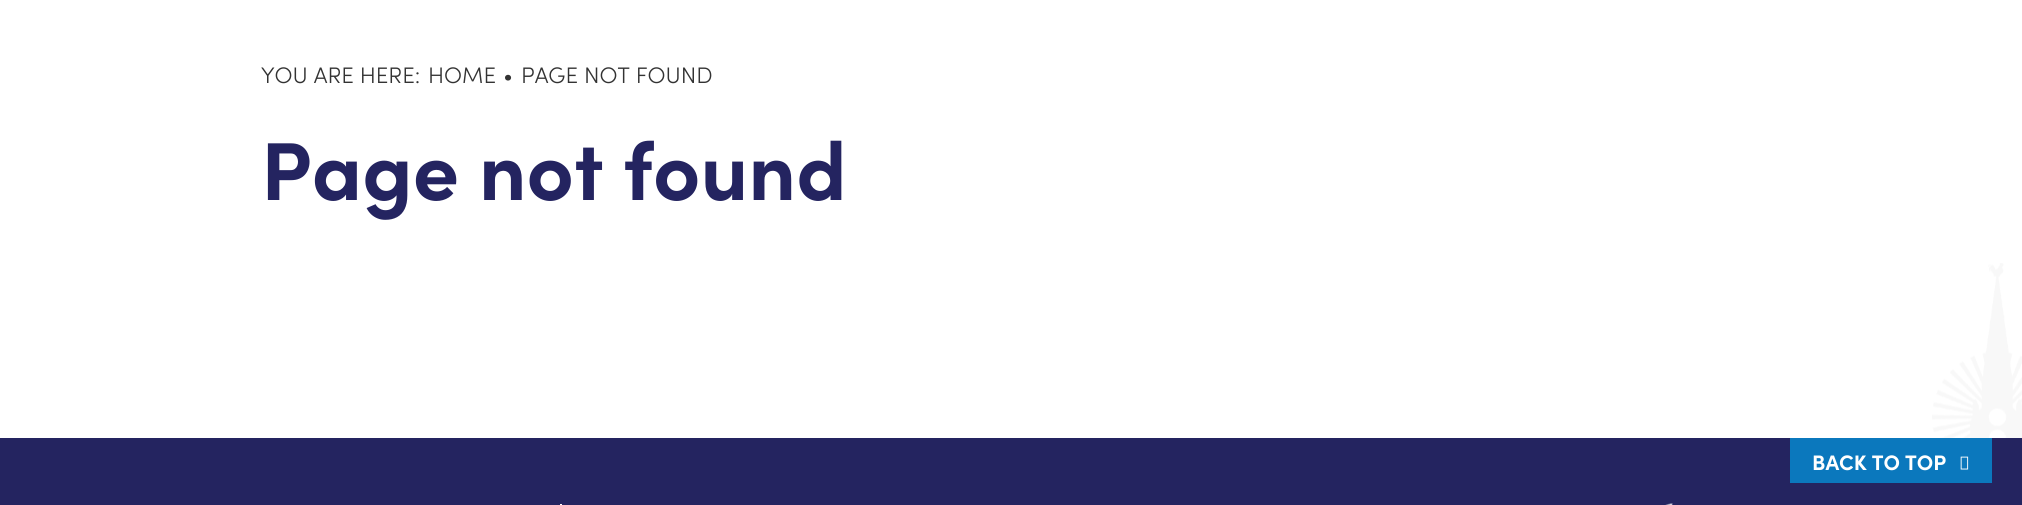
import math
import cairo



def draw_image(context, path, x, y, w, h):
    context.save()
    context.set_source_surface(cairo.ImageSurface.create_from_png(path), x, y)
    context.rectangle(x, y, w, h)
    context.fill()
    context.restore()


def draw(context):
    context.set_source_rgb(1, 1, 1)
    context.paint()
    draw_image(context, "images/1.png", 1932, 263, 90, 175)
    context.set_source_rgb(36 / 255, 36 / 255, 96 / 255)
    context.rectangle(0, 438, 2022, 67)
    context.fill()
    context.set_source_rgb(11 / 255, 120 / 255, 189 / 255)
    context.rectangle(1790, 438, 202, 45)
    context.fill()
    draw_image(context, "images/2.png", 1960, 456, 9, 14)
    draw_image(context, "images/3.png", 1665, 503, 8, 2)
    context.set_source_rgb(1, 1, 1)
    context.rectangle(560, 504, 2, 1)
    context.fill()
    context.select_font_face("Sofia Light")
    context.set_font_size(22.5)
    context.set_source_rgb(51 / 255, 51 / 255, 51 / 255)
    context.move_to(261, 83)
    context.show_text("YOU ARE HERE:")
    context.move_to(428, 83)
    context.show_text("HOME")
    context.move_to(503, 83)
    context.show_text("•")
    context.move_to(521, 83)
    context.show_text("PAGE NOT FOUND")
    context.select_font_face("Sofia", cairo.FontSlant.NORMAL, cairo.FontWeight.BOLD)
    context.set_font_size(82.25)
    context.set_source_rgb(36 / 255, 36 / 255, 96 / 255)
    context.move_to(261, 200)
    context.show_text("Page not found")
    context.set_font_size(21)
    context.set_source_rgb(1, 1, 1)
    context.move_to(1812, 470)
    context.show_text("BACK TO TOP")


surface = cairo.ImageSurface(cairo.Format.RGB24, 2022, 505)
context = cairo.Context(surface)
options = cairo.FontOptions()
options.set_hint_metrics(cairo.HintMetrics.OFF)
options.set_hint_style(cairo.HintStyle.NONE)
context.set_font_options(options)
context.set_miter_limit(4)
draw(context)
surface.write_to_png("out.png")
